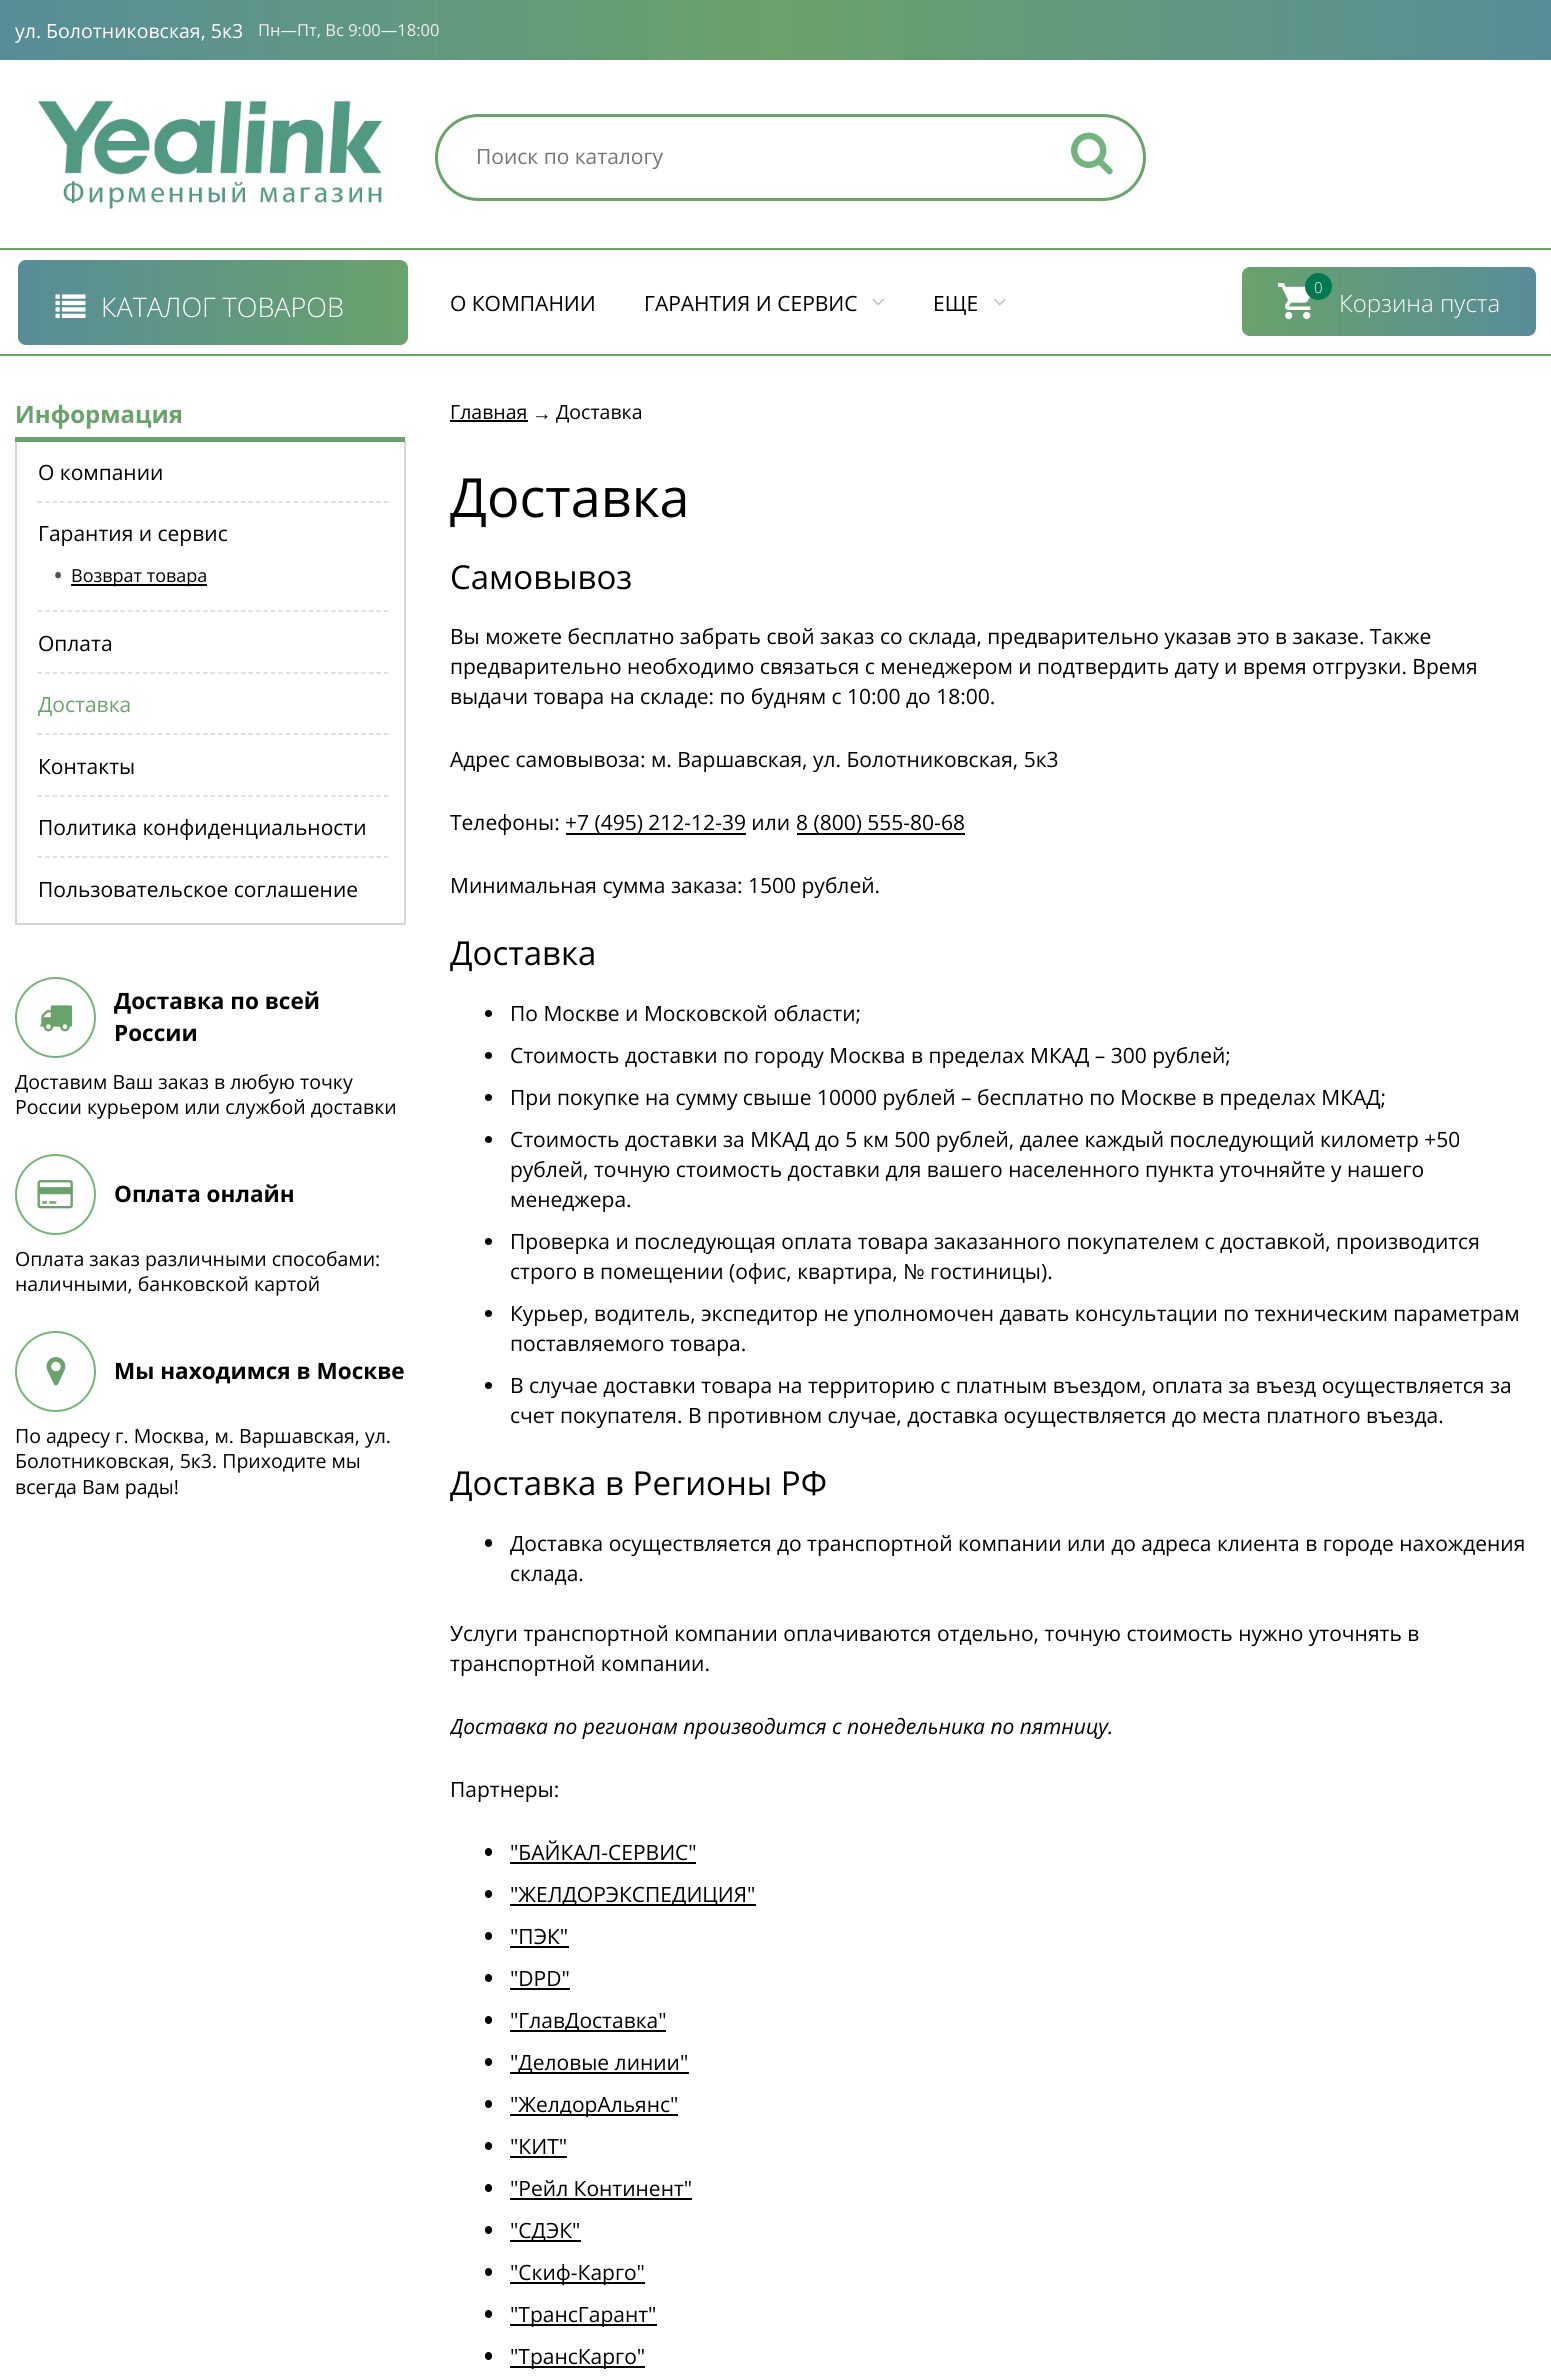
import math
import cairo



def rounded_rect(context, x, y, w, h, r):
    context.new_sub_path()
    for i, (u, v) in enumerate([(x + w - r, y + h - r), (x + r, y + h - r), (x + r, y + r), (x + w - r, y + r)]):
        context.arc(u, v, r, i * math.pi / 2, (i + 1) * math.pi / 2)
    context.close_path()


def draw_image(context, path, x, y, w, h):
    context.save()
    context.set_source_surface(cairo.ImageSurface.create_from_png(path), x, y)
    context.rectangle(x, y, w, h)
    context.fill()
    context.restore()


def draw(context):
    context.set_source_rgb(1, 1, 1)
    context.paint()
    gradient = cairo.LinearGradient(1551, 30, 0, 30)
    gradient.add_color_stop_rgba(0, 88 / 255, 141 / 255, 152 / 255, 1)
    gradient.add_color_stop_rgba(0.5, 105 / 255, 162 / 255, 107 / 255, 1)
    gradient.add_color_stop_rgba(1, 88 / 255, 141 / 255, 152 / 255, 1)
    context.set_source(gradient)
    context.rectangle(0, 0, 1551, 60)
    context.fill()
    draw_image(context, "images/1.png", 38, 100, 344, 109)
    rounded_rect(context, 436.5, 115.5, 708, 84, 42)
    context.set_source_rgb(105 / 255, 162 / 255, 107 / 255)
    context.set_line_width(3)
    context.stroke()
    draw_image(context, "images/2.png", 1071, 132, 42, 43)
    context.rectangle(0, 248, 1551, 2)
    context.fill()
    context.rectangle(0, 354, 1551, 2)
    context.fill()
    gradient = cairo.LinearGradient(408, 302, 18, 302)
    gradient.add_color_stop_rgba(0, 105 / 255, 162 / 255, 107 / 255, 1)
    gradient.add_color_stop_rgba(1, 88 / 255, 141 / 255, 152 / 255, 1)
    context.set_source(gradient)
    rounded_rect(context, 18, 260, 390, 85, 8)
    context.fill()
    draw_image(context, "images/3.png", 55, 294, 31, 24)
    draw_image(context, "images/4.png", 872, 298, 12, 8)
    draw_image(context, "images/5.png", 994, 298, 12, 8)
    gradient = cairo.LinearGradient(1242, 302, 1536, 302)
    gradient.add_color_stop_rgba(0, 105 / 255, 162 / 255, 107 / 255, 1)
    gradient.add_color_stop_rgba(1, 88 / 255, 141 / 255, 152 / 255, 1)
    context.set_source(gradient)
    rounded_rect(context, 1242, 267, 294, 69, 8)
    context.fill()
    draw_image(context, "images/6.png", 1278, 283, 33, 37)
    context.set_source_rgb(1 / 255, 120 / 255, 81 / 255)
    context.arc(1318.5, 286.5, 13.5, 0, 2 * math.pi)
    context.fill()
    context.set_source_rgb(216 / 255, 212 / 255, 212 / 255)
    context.rectangle(404, 441, 2, 483)
    context.fill()
    context.rectangle(15, 923, 390, 2)
    context.fill()
    context.rectangle(15, 441, 2, 483)
    context.fill()
    context.set_source_rgb(105 / 255, 162 / 255, 107 / 255)
    context.rectangle(15, 437, 390, 5)
    context.fill()
    context.new_path()
    context.move_to(37.5, 502)
    context.line_to(388.5, 502)
    context.set_source_rgb(216 / 255, 212 / 255, 212 / 255)
    context.set_line_width(1.5)
    context.set_dash([4.5, 3.03])
    context.stroke()
    context.new_path()
    context.move_to(37.5, 611)
    context.line_to(388.5, 611)
    context.stroke()
    context.set_source_rgb(0, 0, 0)
    context.rectangle(71, 584, 136, 2)
    context.fill()
    context.new_path()
    context.move_to(37.5, 673)
    context.line_to(388.5, 673)
    context.set_source_rgb(216 / 255, 212 / 255, 212 / 255)
    context.stroke()
    context.new_path()
    context.move_to(37.5, 734)
    context.line_to(388.5, 734)
    context.stroke()
    context.new_path()
    context.move_to(37.5, 796)
    context.line_to(388.5, 796)
    context.stroke()
    context.new_path()
    context.move_to(37.5, 857)
    context.line_to(388.5, 857)
    context.stroke()
    context.arc(55.5, 1017.5, 39.5, 0, 2 * math.pi)
    context.set_source_rgb(117 / 255, 181 / 255, 120 / 255)
    context.set_line_width(2)
    context.set_dash([])
    context.stroke()
    draw_image(context, "images/7.png", 40, 1005, 32, 27)
    context.arc(55.5, 1194.5, 39.5, 0, 2 * math.pi)
    context.stroke()
    draw_image(context, "images/8.png", 37, 1180, 36, 29)
    context.arc(55.5, 1371.5, 39.5, 0, 2 * math.pi)
    context.stroke()
    draw_image(context, "images/9.png", 46, 1357, 20, 29)
    context.set_source_rgb(0, 0, 0)
    context.rectangle(450, 420, 78, 2)
    context.fill()
    context.rectangle(566, 833, 180, 2)
    context.fill()
    context.rectangle(797, 833, 168, 2)
    context.fill()
    context.arc(488.5, 1013.5, 3.5, 0, 2 * math.pi)
    context.fill()
    context.arc(488.5, 1055.5, 3.5, 0, 2 * math.pi)
    context.fill()
    context.arc(488.5, 1097.5, 3.5, 0, 2 * math.pi)
    context.fill()
    context.arc(488.5, 1139.5, 3.5, 0, 2 * math.pi)
    context.fill()
    context.arc(488.5, 1241.5, 3.5, 0, 2 * math.pi)
    context.fill()
    context.arc(488.5, 1313.5, 3.5, 0, 2 * math.pi)
    context.fill()
    context.arc(488.5, 1385.5, 3.5, 0, 2 * math.pi)
    context.fill()
    rounded_rect(context, 485, 1539, 7, 8, 3.5)
    context.fill()
    rounded_rect(context, 485, 1848, 7, 8, 3.5)
    context.fill()
    context.rectangle(510, 1862, 186, 2)
    context.fill()
    rounded_rect(context, 485, 1890, 7, 8, 3.5)
    context.fill()
    context.rectangle(510, 1904, 246, 2)
    context.fill()
    rounded_rect(context, 485, 1932, 7, 8, 3.5)
    context.fill()
    context.rectangle(510, 1946, 59, 2)
    context.fill()
    rounded_rect(context, 485, 1974, 7, 8, 3.5)
    context.fill()
    context.rectangle(510, 1988, 60, 2)
    context.fill()
    rounded_rect(context, 485, 2016, 7, 8, 3.5)
    context.fill()
    context.rectangle(510, 2030, 156, 2)
    context.fill()
    rounded_rect(context, 485, 2058, 7, 8, 3.5)
    context.fill()
    context.rectangle(510, 2072, 179, 2)
    context.fill()
    rounded_rect(context, 485, 2100, 7, 8, 3.5)
    context.fill()
    context.rectangle(510, 2114, 168, 2)
    context.fill()
    rounded_rect(context, 485, 2142, 7, 8, 3.5)
    context.fill()
    context.rectangle(510, 2156, 57, 2)
    context.fill()
    rounded_rect(context, 485, 2184, 7, 8, 3.5)
    context.fill()
    context.rectangle(510, 2198, 182, 2)
    context.fill()
    rounded_rect(context, 485, 2226, 7, 8, 3.5)
    context.fill()
    context.rectangle(510, 2240, 71, 2)
    context.fill()
    rounded_rect(context, 485, 2268, 7, 8, 3.5)
    context.fill()
    context.rectangle(510, 2282, 135, 2)
    context.fill()
    rounded_rect(context, 485, 2310, 7, 8, 3.5)
    context.fill()
    context.rectangle(510, 2324, 147, 2)
    context.fill()
    rounded_rect(context, 485, 2352, 7, 8, 3.5)
    context.fill()
    context.rectangle(510, 2366, 135, 2)
    context.fill()
    context.select_font_face("Open Sans")
    context.set_font_size(19.5)
    context.set_source_rgb(1, 1, 1)
    context.move_to(15, 38)
    context.show_text("ул. Болотниковская, 5к3")
    context.set_font_size(16.5)
    context.set_source_rgb(239 / 255, 239 / 255, 239 / 255)
    context.move_to(258, 36)
    context.show_text("Пн—Пт, Вс 9:00—18:00")
    context.set_font_size(21)
    context.set_source_rgb(117 / 255, 117 / 255, 117 / 255)
    context.move_to(476, 164)
    context.show_text("Поиск по каталогу")
    context.select_font_face("Open Sans Light")
    context.set_font_size(27)
    context.set_source_rgb(1, 1, 1)
    context.move_to(101, 317)
    context.show_text("КАТАЛОГ ТОВАРОВ")
    context.select_font_face("Open Sans")
    context.set_font_size(21)
    context.set_source_rgb(0, 0, 0)
    context.move_to(450, 311)
    context.show_text("О КОМПАНИИ")
    context.move_to(644, 311)
    context.show_text("ГАРАНТИЯ И СЕРВИС")
    context.move_to(933, 311)
    context.show_text("ЕЩЕ")
    context.select_font_face("Open Sans Light")
    context.set_font_size(15)
    context.set_source_rgb(1, 1, 1)
    context.move_to(1314, 293)
    context.show_text("0")
    context.set_font_size(24)
    context.move_to(1339, 312)
    context.show_text("Корзина пуста")
    context.select_font_face("Open Sans", cairo.FontSlant.NORMAL, cairo.FontWeight.BOLD)
    context.set_source_rgb(105 / 255, 162 / 255, 107 / 255)
    context.move_to(15, 423)
    context.show_text("Информация")
    context.select_font_face("Open Sans")
    context.set_font_size(21)
    context.set_source_rgb(0, 0, 0)
    context.move_to(38, 480)
    context.show_text("О компании")
    context.move_to(38, 541)
    context.show_text("Гарантия и сервис")
    context.set_font_size(27)
    context.set_source_rgb(83 / 255, 83 / 255, 83 / 255)
    context.move_to(53, 585)
    context.show_text("•")
    context.set_font_size(18)
    context.set_source_rgb(0, 0, 0)
    context.move_to(71, 582)
    context.show_text("Возврат товара")
    context.set_font_size(21)
    context.move_to(38, 651)
    context.show_text("Оплата")
    context.set_source_rgb(105 / 255, 162 / 255, 107 / 255)
    context.move_to(38, 712)
    context.show_text("Доставка")
    context.set_source_rgb(0, 0, 0)
    context.move_to(38, 774)
    context.show_text("Контакты")
    context.move_to(38, 835)
    context.show_text("Политика конфиденциальности")
    context.move_to(38, 897)
    context.show_text("Пользовательское соглашение")
    context.select_font_face("Open Sans", cairo.FontSlant.NORMAL, cairo.FontWeight.BOLD)
    context.set_font_size(22.5)
    context.move_to(114, 1009)
    context.show_text("Доставка по всей")
    context.move_to(114, 1041)
    context.show_text("России")
    context.select_font_face("Open Sans")
    context.set_font_size(19.5)
    context.move_to(15, 1089)
    context.show_text("Доставим Ваш заказ в любую точку")
    context.move_to(15, 1114)
    context.show_text("России курьером или службой доставки")
    context.select_font_face("Open Sans", cairo.FontSlant.NORMAL, cairo.FontWeight.BOLD)
    context.set_font_size(22.5)
    context.move_to(114, 1202)
    context.show_text("Оплата онлайн")
    context.select_font_face("Open Sans")
    context.set_font_size(19.5)
    context.move_to(15, 1266)
    context.show_text("Оплата заказ различными способами:")
    context.move_to(15, 1291)
    context.show_text("наличными, банковской картой")
    context.select_font_face("Open Sans", cairo.FontSlant.NORMAL, cairo.FontWeight.BOLD)
    context.set_font_size(22.5)
    context.move_to(114, 1379)
    context.show_text("Мы находимся в Москве")
    context.select_font_face("Open Sans")
    context.set_font_size(19.5)
    context.move_to(15, 1443)
    context.show_text("По адресу г. Москва, м. Варшавская, ул.")
    context.move_to(15, 1468)
    context.show_text("Болотниковская, 5к3. Приходите мы")
    context.move_to(15, 1494)
    context.show_text("всегда Вам рады!")
    context.move_to(450, 419)
    context.show_text("Главная")
    context.select_font_face("Liberation Sans")
    context.move_to(532, 420)
    context.show_text("→")
    context.select_font_face("Open Sans")
    context.move_to(556, 419)
    context.show_text("Доставка")
    context.set_font_size(54)
    context.move_to(450, 517)
    context.show_text("Доставка")
    context.set_font_size(33)
    context.move_to(450, 589)
    context.show_text("Самовывоз")
    context.set_font_size(21)
    context.move_to(450, 644)
    context.show_text("Вы можете бесплатно забрать свой заказ со склада, предварительно указав это в заказе. Также")
    context.move_to(450, 674)
    context.show_text("предварительно необходимо связаться с менеджером и подтвердить дату и время отгрузки. Время")
    context.move_to(450, 704)
    context.show_text("выдачи товара на складе: по будням с 10:00 до 18:00.")
    context.move_to(450, 767)
    context.show_text("Адрес самовывоза: м. Варшавская, ул. Болотниковская, 5к3")
    context.move_to(450, 830)
    context.show_text("Телефоны:")
    context.move_to(565, 830)
    context.show_text("+7 (495) 212-12-39 или")
    context.move_to(796, 830)
    context.show_text("8 (800) 555-80-68")
    context.move_to(450, 893)
    context.show_text("Минимальная сумма заказа: 1500 рублей.")
    context.set_font_size(33)
    context.move_to(450, 965)
    context.show_text("Доставка")
    context.set_font_size(21)
    context.move_to(510, 1021)
    context.show_text("По Москве и Московской области;")
    context.move_to(510, 1063)
    context.show_text("Стоимость доставки по городу Москва в пределах МКАД – 300 рублей;")
    context.move_to(510, 1105)
    context.show_text("При покупке на сумму свыше 10000 рублей – бесплатно по Москве в пределах МКАД;")
    context.move_to(510, 1147)
    context.show_text("Стоимость доставки за МКАД до 5 км 500 рублей, далее каждый последующий километр +50")
    context.move_to(510, 1177)
    context.show_text("рублей, точную стоимость доставки для вашего населенного пункта уточняйте у нашего")
    context.move_to(510, 1207)
    context.show_text("менеджера.")
    context.move_to(510, 1249)
    context.show_text("Проверка и последующая оплата товара заказанного покупателем с доставкой, производится")
    context.move_to(510, 1279)
    context.show_text("строго в помещении (офис, квартира, № гостиницы).")
    context.move_to(510, 1321)
    context.show_text("Курьер, водитель, экспедитор не уполномочен давать консультации по техническим параметрам")
    context.move_to(510, 1351)
    context.show_text("поставляемого товара.")
    context.move_to(510, 1393)
    context.show_text("В случае доставки товара на территорию с платным въездом, оплата за въезд осуществляется за")
    context.move_to(510, 1423)
    context.show_text("счет покупателя. В противном случае, доставка осуществляется до места платного въезда.")
    context.set_font_size(33)
    context.move_to(450, 1495)
    context.show_text("Доставка в Регионы РФ")
    context.set_font_size(21)
    context.move_to(510, 1551)
    context.show_text("Доставка осуществляется до транспортной компании или до адреса клиента в городе нахождения")
    context.move_to(510, 1581)
    context.show_text("склада.")
    context.move_to(450, 1641)
    context.show_text("Услуги транспортной компании оплачиваются отдельно, точную стоимость нужно уточнять в")
    context.move_to(450, 1671)
    context.show_text("транспортной компании.")
    context.save()
    context.rectangle(450, 557, 1086, 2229)
    context.clip()
    context.select_font_face("Open Sans", cairo.FontSlant.ITALIC)
    context.move_to(450, 1734)
    context.show_text("Доставка по регионам производится с понедельника по пятницу.")
    context.restore()
    context.move_to(450, 1797)
    context.show_text("Партнеры:")
    context.move_to(510, 1860)
    context.show_text("\"БАЙКАЛ-СЕРВИС\"")
    context.move_to(510, 1902)
    context.show_text("\"ЖЕЛДОРЭКСПЕДИЦИЯ\"")
    context.move_to(510, 1944)
    context.show_text("\"ПЭК\"")
    context.move_to(510, 1986)
    context.show_text("\"DPD\"")
    context.move_to(510, 2028)
    context.show_text("\"ГлавДоставка\"")
    context.move_to(510, 2070)
    context.show_text("\"Деловые линии\"")
    context.move_to(510, 2112)
    context.show_text("\"ЖелдорАльянс\"")
    context.move_to(510, 2154)
    context.show_text("\"КИТ\"")
    context.move_to(510, 2196)
    context.show_text("\"Рейл Континент\"")
    context.move_to(510, 2238)
    context.show_text("\"СДЭК\"")
    context.move_to(510, 2280)
    context.show_text("\"Скиф-Карго\"")
    context.move_to(510, 2322)
    context.show_text("\"ТрансГарант\"")
    context.move_to(510, 2364)
    context.show_text("\"ТрансКарго\"")


surface = cairo.ImageSurface(cairo.Format.RGB24, 1551, 2376)
context = cairo.Context(surface)
options = cairo.FontOptions()
options.set_hint_metrics(cairo.HintMetrics.OFF)
options.set_hint_style(cairo.HintStyle.NONE)
context.set_font_options(options)
context.set_miter_limit(4)
draw(context)
surface.write_to_png("out.png")
